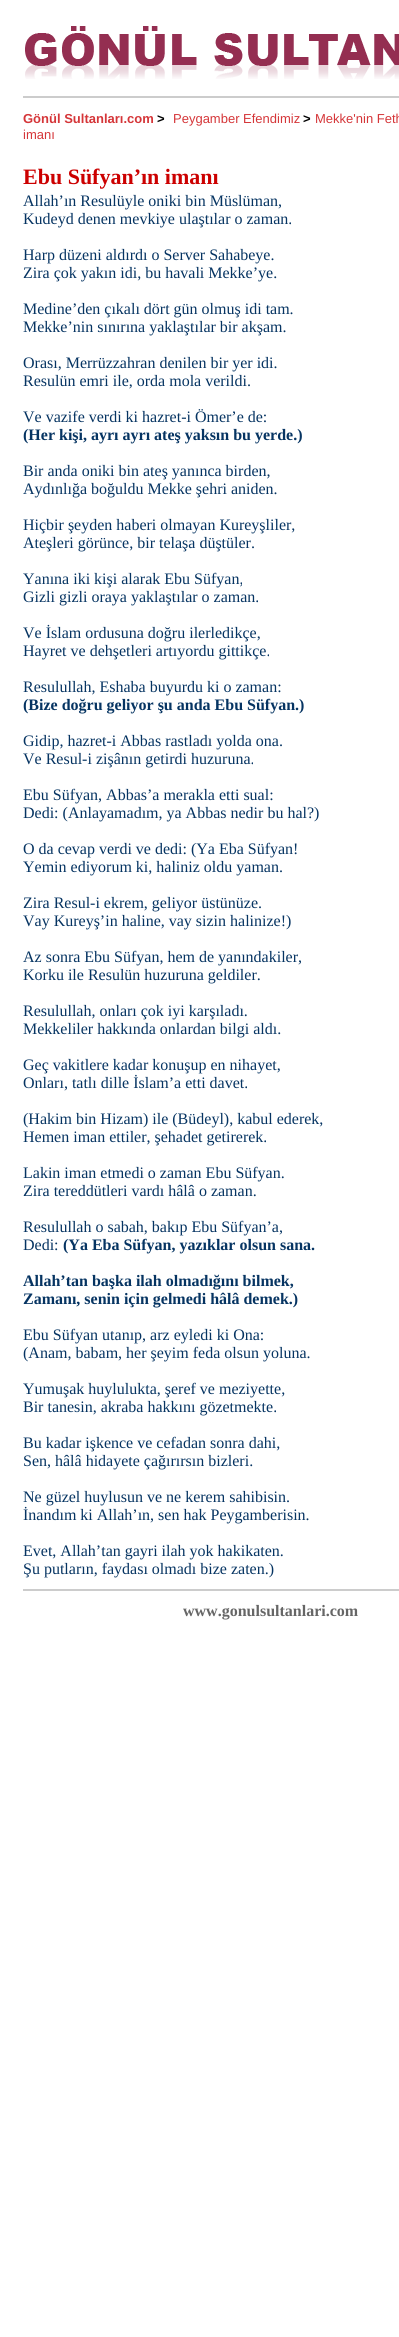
import math
import cairo



def draw_image(context, path, x, y, w, h):
    context.save()
    context.set_source_surface(cairo.ImageSurface.create_from_png(path), x, y)
    context.rectangle(x, y, w, h)
    context.fill()
    context.restore()


def draw(context):
    context.set_source_rgb(1, 1, 1)
    context.paint()
    draw_image(context, "images/1.png", 25, 26, 374, 53)
    context.set_source_rgb(204 / 255, 204 / 255, 204 / 255)
    context.rectangle(23, 96, 376, 2)
    context.fill()
    context.rectangle(23, 1589, 376, 2)
    context.fill()
    context.select_font_face("Liberation Sans", cairo.FontSlant.NORMAL, cairo.FontWeight.BOLD)
    context.set_font_size(13)
    context.set_source_rgb(213 / 255, 54 / 255, 57 / 255)
    context.move_to(23, 123)
    context.show_text("Gönül Sultanları.com")
    context.set_source_rgb(0, 0, 0)
    context.move_to(157, 123)
    context.show_text(">")
    context.select_font_face("Liberation Sans")
    context.set_source_rgb(213 / 255, 54 / 255, 57 / 255)
    context.move_to(173, 123)
    context.show_text("Peygamber Efendimiz")
    context.select_font_face("Liberation Sans", cairo.FontSlant.NORMAL, cairo.FontWeight.BOLD)
    context.set_source_rgb(0, 0, 0)
    context.move_to(303, 123)
    context.show_text(">")
    context.select_font_face("Liberation Sans")
    context.set_source_rgb(213 / 255, 54 / 255, 57 / 255)
    context.move_to(315, 123)
    context.show_text("Mekke'nin Feth")
    context.move_to(23, 139)
    context.show_text("imanı")
    context.select_font_face("Liberation Serif", cairo.FontSlant.NORMAL, cairo.FontWeight.BOLD)
    context.set_font_size(22)
    context.set_source_rgb(204 / 255, 0, 0)
    context.move_to(23, 184)
    context.show_text("Ebu Süfyan’ın imanı")
    context.select_font_face("Liberation Serif")
    context.set_font_size(16)
    context.set_source_rgb(6 / 255, 52 / 255, 98 / 255)
    context.move_to(23, 206)
    context.show_text("Allah’ın Resulüyle oniki bin Müslüman,")
    context.move_to(23, 224)
    context.show_text("Kudeyd denen mevkiye ulaştılar o zaman.")
    context.move_to(23, 260)
    context.show_text("Harp düzeni aldırdı o Server Sahabeye.")
    context.move_to(23, 278)
    context.show_text("Zira çok yakın idi, bu havali Mekke’ye.")
    context.move_to(23, 314)
    context.show_text("Medine’den çıkalı dört gün olmuş idi tam.")
    context.move_to(23, 332)
    context.show_text("Mekke’nin sınırına yaklaştılar bir akşam.")
    context.move_to(23, 368)
    context.show_text("Orası, Merrüzzahran denilen bir yer idi.")
    context.move_to(23, 386)
    context.show_text("Resulün emri ile, orda mola verildi.")
    context.move_to(23, 422)
    context.show_text("Ve vazife verdi ki hazret-i Ömer’e de:")
    context.select_font_face("Liberation Serif", cairo.FontSlant.NORMAL, cairo.FontWeight.BOLD)
    context.move_to(23, 440)
    context.show_text("(Her kişi, ayrı ayrı ateş yaksın bu yerde.)")
    context.select_font_face("Liberation Serif")
    context.move_to(23, 476)
    context.show_text("Bir anda oniki bin ateş yanınca birden,")
    context.move_to(23, 494)
    context.show_text("Aydınlığa boğuldu Mekke şehri aniden.")
    context.move_to(23, 530)
    context.show_text("Hiçbir şeyden haberi olmayan Kureyşliler,")
    context.move_to(23, 548)
    context.show_text("Ateşleri görünce, bir telaşa düştüler.")
    context.move_to(23, 584)
    context.show_text("Yanına iki kişi alarak Ebu Süfyan,")
    context.move_to(23, 602)
    context.show_text("Gizli gizli oraya yaklaştılar o zaman.")
    context.move_to(23, 638)
    context.show_text("Ve İslam ordusuna doğru ilerledikçe,")
    context.move_to(23, 656)
    context.show_text("Hayret ve dehşetleri artıyordu gittikçe.")
    context.move_to(23, 692)
    context.show_text("Resulullah, Eshaba buyurdu ki o zaman:")
    context.select_font_face("Liberation Serif", cairo.FontSlant.NORMAL, cairo.FontWeight.BOLD)
    context.move_to(23, 710)
    context.show_text("(Bize doğru geliyor şu anda Ebu Süfyan.)")
    context.select_font_face("Liberation Serif")
    context.move_to(23, 746)
    context.show_text("Gidip, hazret-i Abbas rastladı yolda ona.")
    context.move_to(23, 764)
    context.show_text("Ve Resul-i zişânın getirdi huzuruna.")
    context.move_to(23, 800)
    context.show_text("Ebu Süfyan, Abbas’a merakla etti sual:")
    context.move_to(23, 818)
    context.show_text("Dedi: (Anlayamadım, ya Abbas nedir bu hal?)")
    context.move_to(23, 854)
    context.show_text("O da cevap verdi ve dedi: (Ya Eba Süfyan!")
    context.move_to(23, 872)
    context.show_text("Yemin ediyorum ki, haliniz oldu yaman.")
    context.move_to(23, 908)
    context.show_text("Zira Resul-i ekrem, geliyor üstünüze.")
    context.move_to(23, 926)
    context.show_text("Vay Kureyş’in haline, vay sizin halinize!)")
    context.move_to(23, 962)
    context.show_text("Az sonra Ebu Süfyan, hem de yanındakiler,")
    context.move_to(23, 980)
    context.show_text("Korku ile Resulün huzuruna geldiler.")
    context.move_to(23, 1016)
    context.show_text("Resulullah, onları çok iyi karşıladı.")
    context.move_to(23, 1034)
    context.show_text("Mekkeliler hakkında onlardan bilgi aldı.")
    context.move_to(23, 1070)
    context.show_text("Geç vakitlere kadar konuşup en nihayet,")
    context.move_to(23, 1088)
    context.show_text("Onları, tatlı dille İslam’a etti davet.")
    context.move_to(23, 1124)
    context.show_text("(Hakim bin Hizam) ile (Büdeyl), kabul ederek,")
    context.move_to(23, 1142)
    context.show_text("Hemen iman ettiler, şehadet getirerek.")
    context.move_to(23, 1178)
    context.show_text("Lakin iman etmedi o zaman Ebu Süfyan.")
    context.move_to(23, 1196)
    context.show_text("Zira tereddütleri vardı hâlâ o zaman.")
    context.move_to(23, 1232)
    context.show_text("Resulullah o sabah, bakıp Ebu Süfyan’a,")
    context.move_to(23, 1250)
    context.show_text("Dedi:")
    context.select_font_face("Liberation Serif", cairo.FontSlant.NORMAL, cairo.FontWeight.BOLD)
    context.move_to(63, 1250)
    context.show_text("(Ya Eba Süfyan, yazıklar olsun sana.")
    context.move_to(23, 1286)
    context.show_text("Allah’tan başka ilah olmadığını bilmek,")
    context.move_to(23, 1304)
    context.show_text("Zamanı, senin için gelmedi hâlâ demek.)")
    context.select_font_face("Liberation Serif")
    context.move_to(23, 1340)
    context.show_text("Ebu Süfyan utanıp, arz eyledi ki Ona:")
    context.move_to(23, 1358)
    context.show_text("(Anam, babam, her şeyim feda olsun yoluna.")
    context.move_to(23, 1394)
    context.show_text("Yumuşak huylulukta, şeref ve meziyette,")
    context.move_to(23, 1412)
    context.show_text("Bir tanesin, akraba hakkını gözetmekte.")
    context.move_to(23, 1448)
    context.show_text("Bu kadar işkence ve cefadan sonra dahi,")
    context.move_to(23, 1466)
    context.show_text("Sen, hâlâ hidayete çağırırsın bizleri.")
    context.move_to(23, 1502)
    context.show_text("Ne güzel huylusun ve ne kerem sahibisin.")
    context.move_to(23, 1520)
    context.show_text("İnandım ki Allah’ın, sen hak Peygamberisin.")
    context.move_to(23, 1556)
    context.show_text("Evet, Allah’tan gayri ilah yok hakikaten.")
    context.move_to(23, 1574)
    context.show_text("Şu putların, faydası olmadı bize zaten.)")
    context.select_font_face("Liberation Serif", cairo.FontSlant.NORMAL, cairo.FontWeight.BOLD)
    context.set_source_rgb(102 / 255, 102 / 255, 102 / 255)
    context.move_to(183, 1616)
    context.show_text("www.gonulsultanlari.com")


surface = cairo.ImageSurface(cairo.Format.RGB24, 399, 2337)
context = cairo.Context(surface)
options = cairo.FontOptions()
options.set_hint_metrics(cairo.HintMetrics.OFF)
options.set_hint_style(cairo.HintStyle.NONE)
context.set_font_options(options)
context.set_miter_limit(4)
draw(context)
surface.write_to_png("out.png")
